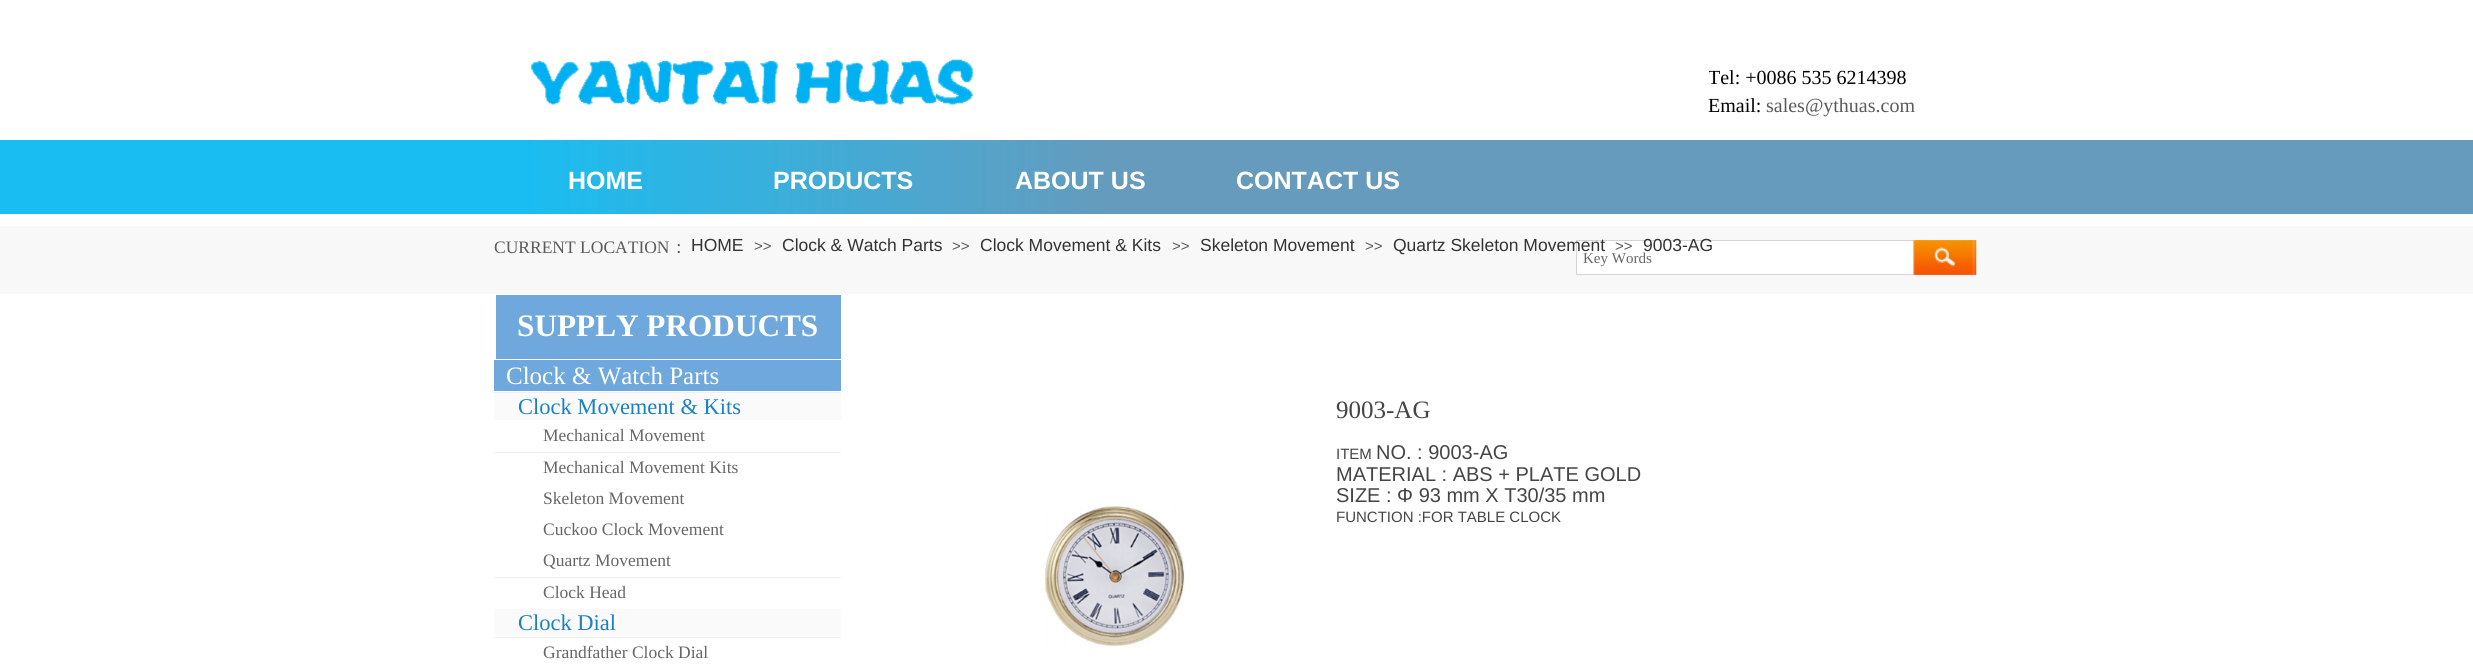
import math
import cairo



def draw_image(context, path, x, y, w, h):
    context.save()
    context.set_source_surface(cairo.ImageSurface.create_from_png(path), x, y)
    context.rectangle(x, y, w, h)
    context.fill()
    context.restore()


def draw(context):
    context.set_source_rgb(1, 1, 1)
    context.paint()
    draw_image(context, "images/1.png", 530, 59, 444, 46)
    gradient = cairo.LinearGradient(0, 176, 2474, 176)
    gradient.add_color_stop_rgba(0.21, 25 / 255, 189 / 255, 241 / 255, 1)
    gradient.add_color_stop_rgba(0.45, 102 / 255, 155 / 255, 189 / 255, 1)
    context.set_source(gradient)
    context.rectangle(0, 140, 2473, 74)
    context.fill()
    context.set_source_rgb(248 / 255, 248 / 255, 248 / 255)
    context.rectangle(0, 226, 2473, 68)
    context.fill()
    context.set_source_rgb(1, 1, 1)
    context.rectangle(1576.5, 240.5, 337, 34)
    context.fill_preserve()
    context.set_source_rgb(211 / 255, 211 / 255, 211 / 255)
    context.set_line_width(1)
    context.stroke()
    draw_image(context, "images/2.png", 1913, 240, 64, 35)
    context.set_source_rgb(111 / 255, 168 / 255, 220 / 255)
    context.rectangle(496, 295, 345, 64)
    context.fill()
    context.set_source_rgb(240 / 255, 240 / 255, 240 / 255)
    context.rectangle(494, 392, 347, 1)
    context.fill()
    context.set_source_rgb(111 / 255, 168 / 255, 220 / 255)
    context.rectangle(494, 360, 347, 31)
    context.fill()
    context.set_source_rgb(250 / 255, 250 / 255, 250 / 255)
    context.rectangle(494, 393, 347, 27)
    context.fill()
    context.set_source_rgb(240 / 255, 240 / 255, 240 / 255)
    context.rectangle(494, 452, 347, 1)
    context.fill()
    context.rectangle(494, 577, 347, 1)
    context.fill()
    context.rectangle(494, 637, 347, 1)
    context.fill()
    context.set_source_rgb(250 / 255, 250 / 255, 250 / 255)
    context.rectangle(494, 609, 347, 27)
    context.fill()
    draw_image(context, "images/3.png", 1044, 506, 141, 141)
    context.save()
    context.rectangle(1709, 64, 274, 71)
    context.clip()
    context.select_font_face("Liberation Serif")
    context.set_font_size(20)
    context.set_source_rgb(0, 0, 0)
    context.move_to(1708, 84)
    context.show_text("Tel: +0086 535 6214398")
    context.restore()
    context.select_font_face("Liberation Serif")
    context.set_font_size(20)
    context.set_source_rgb(0, 0, 0)
    context.move_to(1708, 112)
    context.show_text("Email:")
    context.set_source_rgb(90 / 255, 90 / 255, 90 / 255)
    context.move_to(1766, 112)
    context.show_text("sales@ythuas.com")
    context.select_font_face("Liberation Sans", cairo.FontSlant.NORMAL, cairo.FontWeight.BOLD)
    context.set_font_size(25)
    context.set_source_rgb(1, 1, 1)
    context.move_to(568, 189)
    context.show_text("HOME")
    context.move_to(773, 189)
    context.show_text("PRODUCTS")
    context.move_to(1015, 189)
    context.show_text("ABOUT US")
    context.move_to(1236, 189)
    context.show_text("CONTACT US")
    context.select_font_face("Liberation Serif")
    context.set_font_size(17.5)
    context.set_source_rgb(90 / 255, 90 / 255, 90 / 255)
    context.move_to(494, 253)
    context.show_text("CURRENT LOCATION")
    context.select_font_face("WenQuanYi Zen Hei Medium")
    context.move_to(670, 253)
    context.show_text("：")
    context.select_font_face("Liberation Sans")
    context.set_source_rgb(51 / 255, 51 / 255, 51 / 255)
    context.move_to(691, 251)
    context.show_text("HOME")
    context.set_font_size(15)
    context.set_source_rgb(90 / 255, 90 / 255, 90 / 255)
    context.move_to(754, 251)
    context.show_text(">>")
    context.set_font_size(17.5)
    context.set_source_rgb(51 / 255, 51 / 255, 51 / 255)
    context.move_to(782, 251)
    context.show_text("Clock & Watch Parts")
    context.set_font_size(15)
    context.set_source_rgb(90 / 255, 90 / 255, 90 / 255)
    context.move_to(952, 251)
    context.show_text(">>")
    context.set_font_size(17.5)
    context.set_source_rgb(51 / 255, 51 / 255, 51 / 255)
    context.move_to(980, 251)
    context.show_text("Clock Movement & Kits")
    context.set_font_size(15)
    context.set_source_rgb(90 / 255, 90 / 255, 90 / 255)
    context.move_to(1172, 251)
    context.show_text(">>")
    context.set_font_size(17.5)
    context.set_source_rgb(51 / 255, 51 / 255, 51 / 255)
    context.move_to(1200, 251)
    context.show_text("Skeleton Movement")
    context.set_font_size(15)
    context.set_source_rgb(90 / 255, 90 / 255, 90 / 255)
    context.move_to(1365, 251)
    context.show_text(">>")
    context.set_font_size(17.5)
    context.set_source_rgb(51 / 255, 51 / 255, 51 / 255)
    context.move_to(1393, 251)
    context.show_text("Quartz Skeleton Movement")
    context.set_font_size(15)
    context.set_source_rgb(90 / 255, 90 / 255, 90 / 255)
    context.move_to(1615, 251)
    context.show_text(">>")
    context.set_font_size(17.5)
    context.set_source_rgb(51 / 255, 51 / 255, 51 / 255)
    context.move_to(1643, 251)
    context.show_text("9003-AG")
    context.select_font_face("Liberation Serif")
    context.set_font_size(15)
    context.set_source_rgb(102 / 255, 102 / 255, 102 / 255)
    context.move_to(1583, 263)
    context.show_text("Key Words")
    context.select_font_face("Liberation Serif", cairo.FontSlant.NORMAL, cairo.FontWeight.BOLD)
    context.set_font_size(31.25)
    context.set_source_rgb(1, 1, 1)
    context.move_to(517, 336)
    context.show_text("SUPPLY PRODUCTS")
    context.select_font_face("Liberation Serif")
    context.set_font_size(25)
    context.move_to(506, 384)
    context.show_text("Clock & Watch Parts")
    context.set_font_size(22.5)
    context.set_source_rgb(27 / 255, 129 / 255, 196 / 255)
    context.move_to(518, 414)
    context.show_text("Clock Movement & Kits")
    context.set_font_size(17.5)
    context.set_source_rgb(102 / 255, 102 / 255, 102 / 255)
    context.move_to(543, 441)
    context.show_text("Mechanical Movement")
    context.move_to(543, 473)
    context.show_text("Mechanical Movement Kits")
    context.move_to(543, 504)
    context.show_text("Skeleton Movement")
    context.move_to(543, 535)
    context.show_text("Cuckoo Clock Movement")
    context.move_to(543, 566)
    context.show_text("Quartz Movement")
    context.move_to(543, 598)
    context.show_text("Clock Head")
    context.set_font_size(22.5)
    context.set_source_rgb(27 / 255, 129 / 255, 196 / 255)
    context.move_to(518, 630)
    context.show_text("Clock Dial")
    context.set_font_size(17.5)
    context.set_source_rgb(102 / 255, 102 / 255, 102 / 255)
    context.move_to(543, 658)
    context.show_text("Grandfather Clock Dial")
    context.set_font_size(25)
    context.set_source_rgb(69 / 255, 69 / 255, 69 / 255)
    context.move_to(1336, 418)
    context.show_text("9003-AG")
    context.select_font_face("Liberation Sans")
    context.set_font_size(15)
    context.move_to(1336, 459)
    context.show_text("ITEM")
    context.set_font_size(20)
    context.move_to(1376, 459)
    context.show_text("NO. : 9003-AG")
    context.move_to(1336, 481)
    context.show_text("MATERIAL : ABS + PLATE GOLD")
    context.move_to(1336, 502)
    context.show_text("SIZE : Φ 93 mm X T30/35 mm")
    context.set_font_size(15)
    context.move_to(1336, 522)
    context.show_text("FUNCTION :FOR TABLE CLOCK")


surface = cairo.ImageSurface(cairo.Format.RGB24, 2473, 665)
context = cairo.Context(surface)
options = cairo.FontOptions()
options.set_hint_metrics(cairo.HintMetrics.OFF)
options.set_hint_style(cairo.HintStyle.NONE)
context.set_font_options(options)
context.set_miter_limit(4)
draw(context)
surface.write_to_png("out.png")
